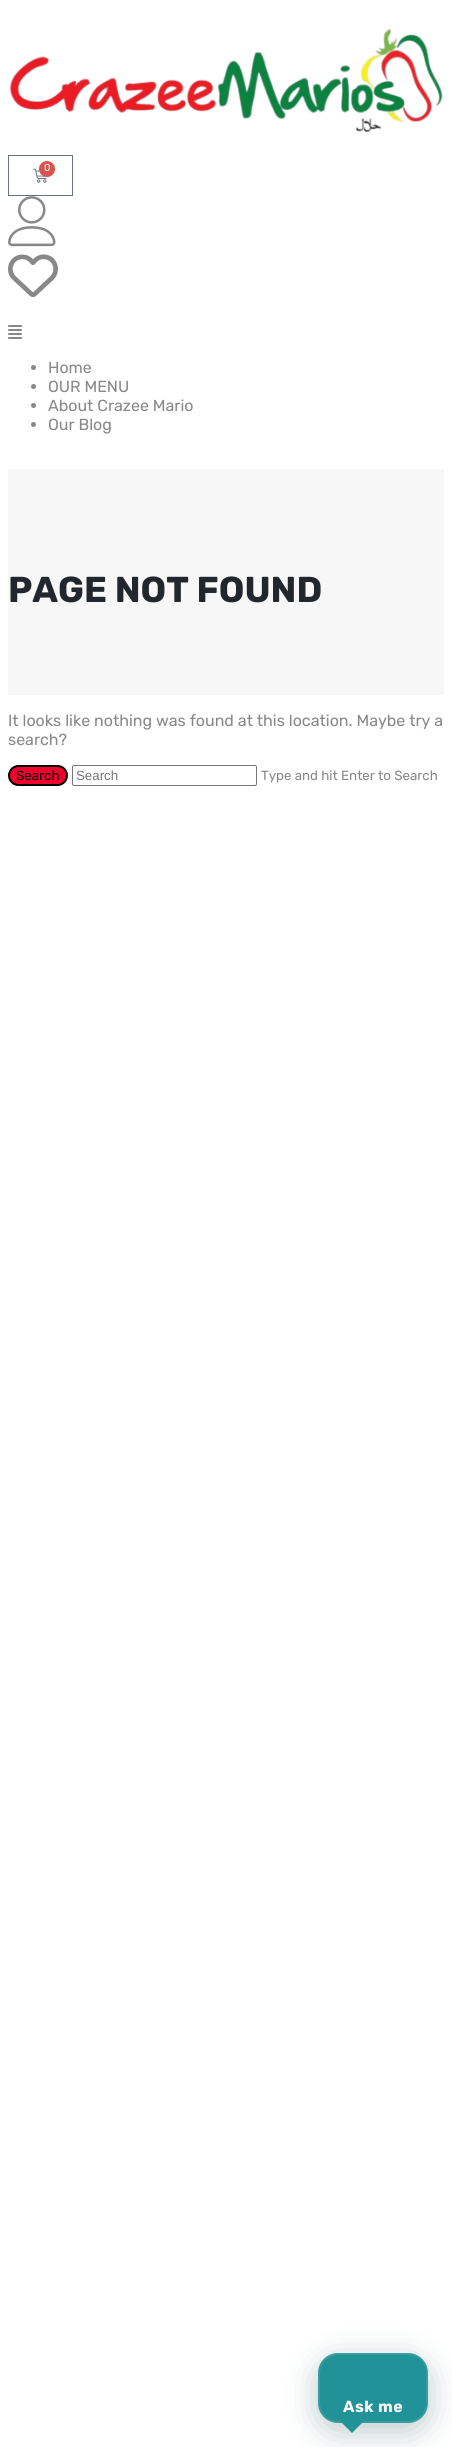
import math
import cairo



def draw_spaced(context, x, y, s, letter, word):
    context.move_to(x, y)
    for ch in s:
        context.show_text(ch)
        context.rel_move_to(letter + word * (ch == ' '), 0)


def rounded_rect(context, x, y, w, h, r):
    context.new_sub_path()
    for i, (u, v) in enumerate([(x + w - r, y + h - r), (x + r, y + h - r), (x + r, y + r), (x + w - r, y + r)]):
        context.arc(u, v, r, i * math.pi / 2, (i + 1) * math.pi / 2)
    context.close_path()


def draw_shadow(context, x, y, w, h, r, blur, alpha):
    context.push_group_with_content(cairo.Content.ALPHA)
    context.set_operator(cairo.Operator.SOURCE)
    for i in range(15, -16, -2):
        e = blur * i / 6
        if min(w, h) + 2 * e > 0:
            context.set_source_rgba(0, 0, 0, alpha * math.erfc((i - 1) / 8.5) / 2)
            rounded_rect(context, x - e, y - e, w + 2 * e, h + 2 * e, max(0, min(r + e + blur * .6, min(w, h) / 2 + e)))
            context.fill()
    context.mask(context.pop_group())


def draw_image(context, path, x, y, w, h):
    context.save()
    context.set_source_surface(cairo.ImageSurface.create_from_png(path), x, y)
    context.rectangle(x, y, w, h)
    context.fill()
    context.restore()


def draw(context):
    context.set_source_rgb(1, 1, 1)
    context.paint()
    draw_image(context, "images/1.png", 9, 28, 434, 105)
    context.rectangle(8.5, 155.5, 64, 40)
    context.set_source_rgb(105 / 255, 114 / 255, 125 / 255)
    context.set_line_width(1)
    context.stroke()
    draw_image(context, "images/2.png", 33, 168, 14, 15)
    context.set_source_rgb(217 / 255, 83 / 255, 79 / 255)
    context.arc(47, 169, 8, 0, 2 * math.pi)
    context.fill()
    draw_image(context, "images/3.png", 8, 196, 48, 51)
    draw_image(context, "images/4.png", 8, 254, 50, 44)
    draw_image(context, "images/5.png", 8, 325, 14, 14)
    context.set_source_rgb(136 / 255, 136 / 255, 136 / 255)
    context.arc(33.5, 367.5, 2.5, 0, 2 * math.pi)
    context.fill()
    context.arc(33.5, 386.5, 2.5, 0, 2 * math.pi)
    context.fill()
    context.arc(33.5, 405.5, 2.5, 0, 2 * math.pi)
    context.fill()
    context.arc(33.5, 424.5, 2.5, 0, 2 * math.pi)
    context.fill()
    context.set_source_rgb(247 / 255, 247 / 255, 247 / 255)
    context.rectangle(8, 469, 436, 226)
    context.fill()
    context.set_source_rgb(242 / 255, 0, 45 / 255)
    rounded_rect(context, 9, 766, 58, 19, 9.5)
    context.fill_preserve()
    context.set_source_rgb(0, 0, 0)
    context.set_line_width(2)
    context.stroke()
    rounded_rect(context, 72.5, 765.5, 184, 20, 1.5)
    context.set_source_rgb(118 / 255, 118 / 255, 118 / 255)
    context.set_line_width(1)
    context.stroke()
    context.set_source_rgb(31 / 255, 72 / 255, 75 / 255)
    draw_shadow(context, 318, 2361, 110, 70, 20, 16, 0.3)
    context.set_source_rgb(33 / 255, 146 / 255, 151 / 255)
    rounded_rect(context, 318, 2353, 110, 70, 20)
    context.fill()
    rounded_rect(context, 319, 2354, 108, 68, 19)
    context.set_source_rgba(1, 1, 1, 0.1)
    context.set_line_width(2)
    context.stroke()
    context.set_source_rgb(33 / 255, 146 / 255, 151 / 255)
    context.new_path()
    context.move_to(340, 2421)
    context.line_to(364, 2421)
    context.line_to(352, 2433)
    context.close_path()
    context.fill()
    context.select_font_face("Rubik")
    context.set_font_size(10)
    context.set_source_rgb(1, 1, 1)
    context.move_to(44, 171)
    context.show_text("0")
    context.set_font_size(16)
    context.set_source_rgb(136 / 255, 136 / 255, 136 / 255)
    context.move_to(48, 373)
    context.show_text("Home")
    context.move_to(48, 392)
    context.show_text("OUR MENU")
    context.move_to(48, 411)
    context.show_text("About Crazee Mario")
    context.move_to(48, 430)
    context.show_text("Our Blog")
    context.select_font_face("Rubik", cairo.FontSlant.NORMAL, cairo.FontWeight.BOLD)
    context.set_font_size(36)
    context.set_source_rgb(34 / 255, 39 / 255, 45 / 255)
    context.move_to(8, 602)
    context.show_text("PAGE NOT FOUND")
    context.select_font_face("Rubik")
    context.set_font_size(16)
    context.set_source_rgb(136 / 255, 136 / 255, 136 / 255)
    context.move_to(8, 726)
    context.show_text("It looks like nothing was found at this location. Maybe try a")
    context.move_to(8, 745)
    context.show_text("search?")
    context.set_font_size(13.3)
    context.set_source_rgb(0, 0, 0)
    context.move_to(16, 780)
    context.show_text("Search")
    context.select_font_face("Liberation Sans")
    context.set_source_rgb(117 / 255, 117 / 255, 117 / 255)
    context.move_to(76, 780)
    context.show_text("Search")
    context.select_font_face("Rubik")
    context.set_source_rgb(136 / 255, 136 / 255, 136 / 255)
    context.move_to(261, 780)
    context.show_text("Type and hit Enter to Search")
    context.select_font_face("Rubik", cairo.FontSlant.NORMAL, cairo.FontWeight.BOLD)
    context.set_font_size(16)
    context.set_source_rgb(1, 1, 1)
    draw_spaced(context, 343, 2412, "Ask me", 0.5, 0)


surface = cairo.ImageSurface(cairo.Format.RGB24, 452, 2447)
context = cairo.Context(surface)
options = cairo.FontOptions()
options.set_hint_metrics(cairo.HintMetrics.OFF)
options.set_hint_style(cairo.HintStyle.NONE)
context.set_font_options(options)
context.set_miter_limit(4)
draw(context)
surface.write_to_png("out.png")
